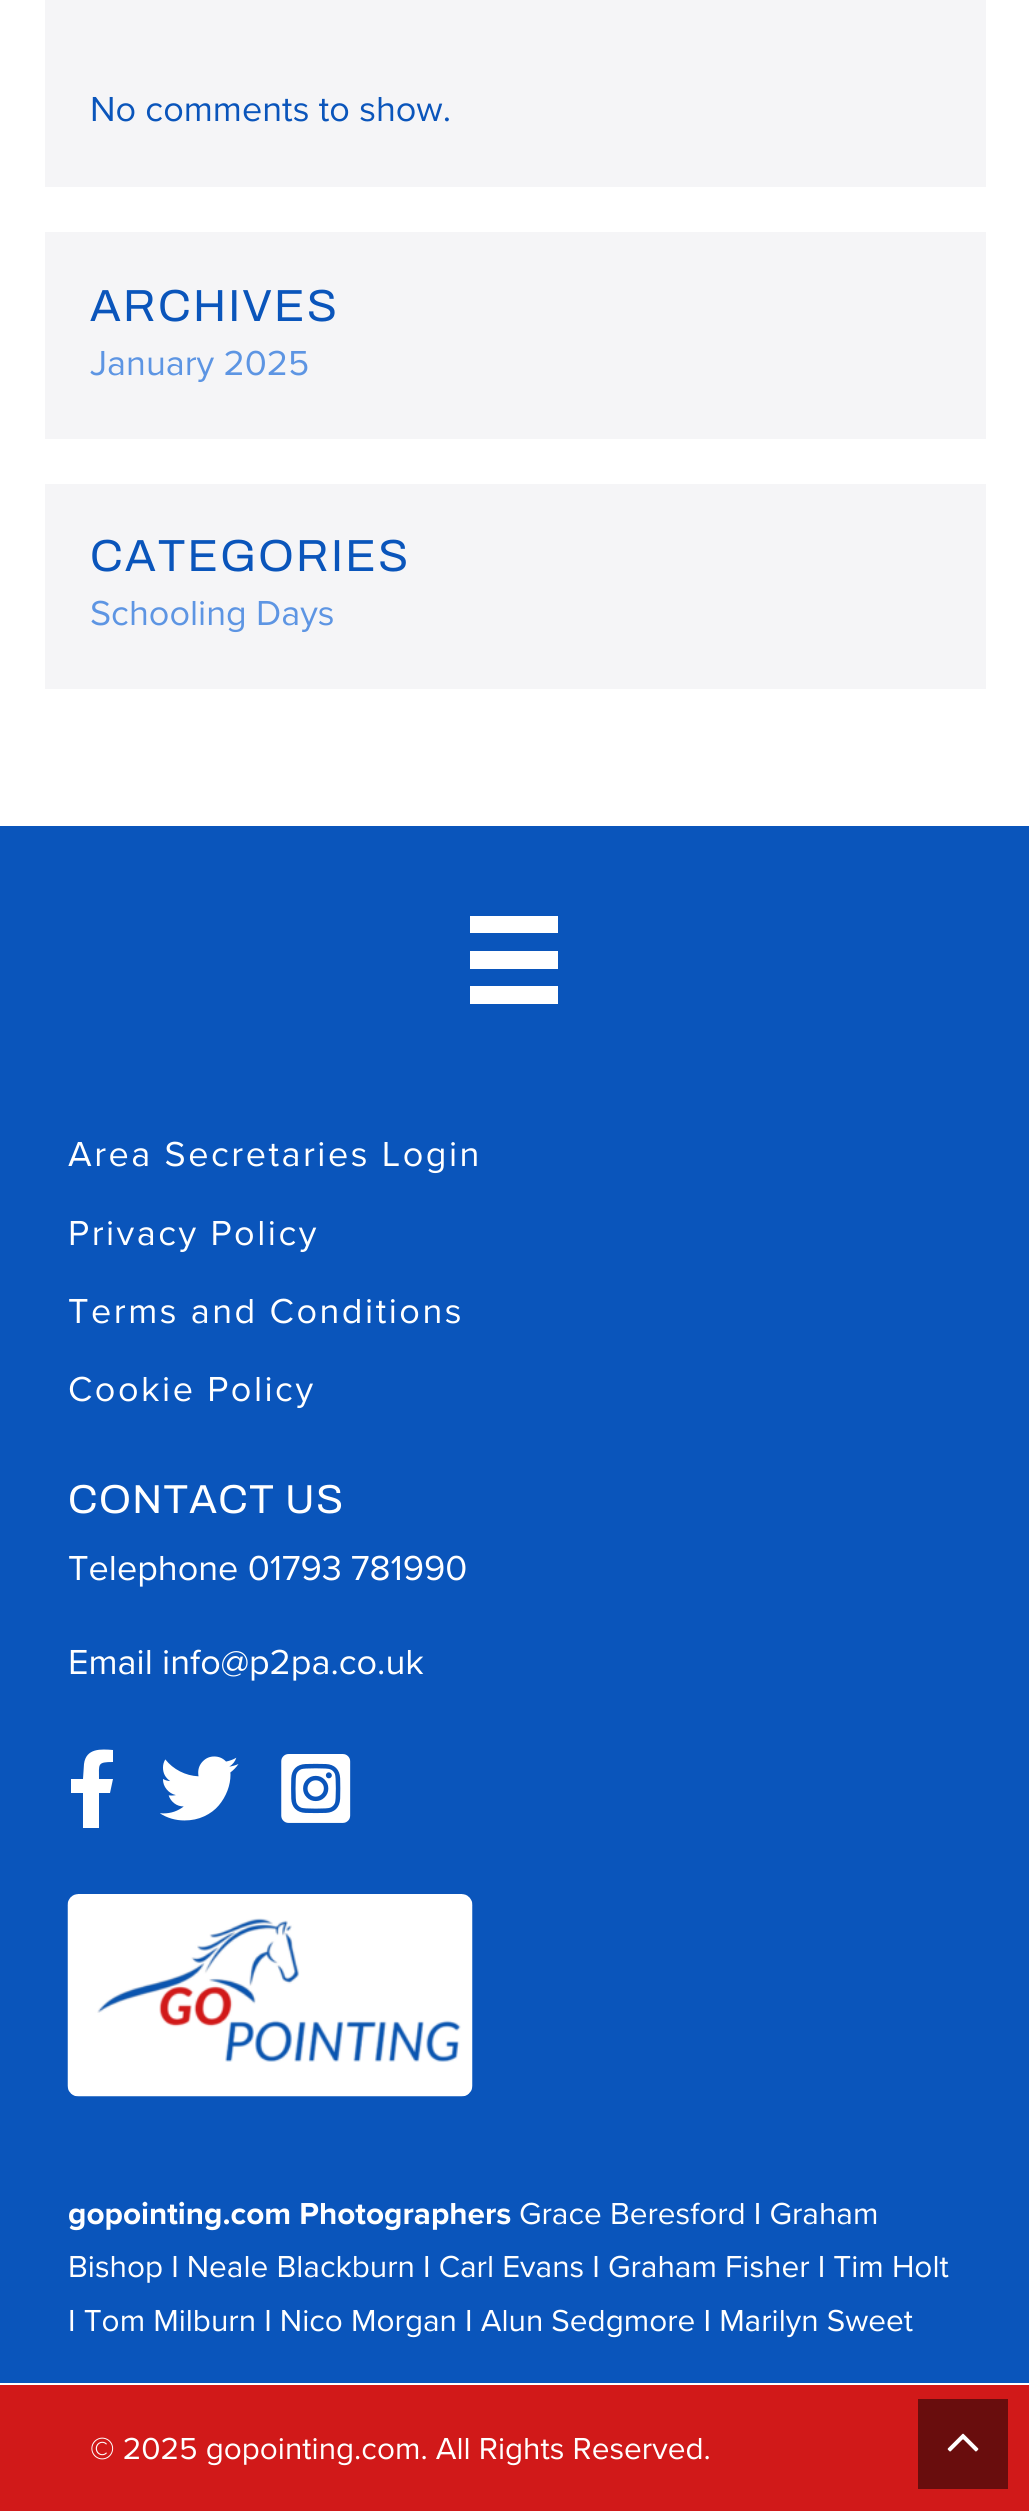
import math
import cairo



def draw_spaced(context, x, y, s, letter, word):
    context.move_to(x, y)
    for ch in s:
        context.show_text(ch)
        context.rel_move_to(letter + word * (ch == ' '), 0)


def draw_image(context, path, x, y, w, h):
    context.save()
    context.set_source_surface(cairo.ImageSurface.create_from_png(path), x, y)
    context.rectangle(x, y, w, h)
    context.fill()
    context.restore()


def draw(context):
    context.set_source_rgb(1, 1, 1)
    context.paint()
    context.set_source_rgb(245 / 255, 245 / 255, 247 / 255)
    context.rectangle(45, 0, 941, 187)
    context.fill()
    context.rectangle(45, 232, 941, 207)
    context.fill()
    context.rectangle(45, 484, 941, 205)
    context.fill()
    context.set_source_rgb(10 / 255, 85 / 255, 187 / 255)
    context.rectangle(0, 826, 1029, 1557)
    context.fill()
    context.set_source_rgb(1, 1, 1)
    context.rectangle(470, 916, 88, 17)
    context.fill()
    context.rectangle(470, 951, 88, 18)
    context.fill()
    context.rectangle(470, 986, 88, 18)
    context.fill()
    context.new_path()
    context.move_to(110, 1793)
    context.line_to(99, 1793)
    context.line_to(99, 1828)
    context.line_to(83, 1828)
    context.line_to(83, 1793)
    context.line_to(71, 1793)
    context.line_to(71, 1779)
    context.line_to(83, 1779)
    context.line_to(84, 1764)
    context.curve_to(86, 1748, 101, 1749, 113, 1750)
    context.line_to(113, 1762)
    context.curve_to(97, 1762, 99, 1764, 99, 1779)
    context.line_to(113, 1779)
    context.close_path()
    context.fill()
    draw_image(context, "images/1.png", 160, 1756, 79, 65)
    draw_image(context, "images/2.png", 281, 1754, 70, 69)
    draw_image(context, "images/3.png", 67, 1894, 406, 203)
    context.set_source_rgb(209 / 255, 25 / 255, 25 / 255)
    context.rectangle(0, 2385, 1029, 126)
    context.fill()
    context.set_source_rgb(105 / 255, 13 / 255, 13 / 255)
    context.rectangle(918, 2399, 90, 90)
    context.fill()
    draw_image(context, "images/4.png", 947, 2433, 32, 19)
    context.select_font_face("Proxima Nova")
    context.set_font_size(36)
    context.set_source_rgb(10 / 255, 85 / 255, 187 / 255)
    context.move_to(90, 121)
    context.show_text("No comments to show.")
    context.select_font_face("Archivo SemiBold")
    context.set_font_size(45)
    draw_spaced(context, 90, 321, "ARCHIVES", 2.25, 0)
    context.select_font_face("Proxima Nova")
    context.set_font_size(36)
    context.set_source_rgb(93 / 255, 149 / 255, 227 / 255)
    context.move_to(90, 375)
    context.show_text("January 2025")
    context.select_font_face("Archivo SemiBold")
    context.set_font_size(45)
    context.set_source_rgb(10 / 255, 85 / 255, 187 / 255)
    draw_spaced(context, 90, 571, "CATEGORIES", 2.25, 0)
    context.select_font_face("Proxima Nova")
    context.set_font_size(36)
    context.set_source_rgb(93 / 255, 149 / 255, 227 / 255)
    context.move_to(90, 625)
    context.show_text("Schooling Days")
    context.set_source_rgb(1, 1, 1)
    draw_spaced(context, 68, 1166, "Area Secretaries Login", 2.5, 0)
    draw_spaced(context, 68, 1245, "Privacy Policy", 2.5, 0)
    draw_spaced(context, 68, 1323, "Terms and Conditions", 2.5, 0)
    draw_spaced(context, 68, 1401, "Cookie Policy", 2.5, 0)
    context.select_font_face("Archivo SemiBold")
    context.set_font_size(40.5)
    draw_spaced(context, 68, 1513, "CONTACT US", 1.4, 0)
    context.select_font_face("Proxima Nova")
    context.set_font_size(36)
    context.move_to(68, 1580)
    context.show_text("Telephone 01793 781990")
    context.move_to(68, 1674)
    context.show_text("Email info@p2pa.co.uk")
    context.select_font_face("Proxima Nova", cairo.FontSlant.NORMAL, cairo.FontWeight.BOLD)
    context.set_font_size(31.5)
    context.move_to(68, 2224)
    context.show_text("gopointing.com Photographers")
    context.select_font_face("Proxima Nova")
    context.move_to(519, 2224)
    context.show_text("Grace Beresford I Graham")
    context.move_to(68, 2277)
    context.show_text("Bishop I Neale Blackburn I Carl Evans I Graham Fisher I Tim Holt")
    context.move_to(68, 2331)
    context.show_text("I Tom Milburn I Nico Morgan I Alun Sedgmore I Marilyn Sweet")
    context.move_to(90, 2459)
    context.show_text("© 2025 gopointing.com. All Rights Reserved.")


surface = cairo.ImageSurface(cairo.Format.RGB24, 1029, 2511)
context = cairo.Context(surface)
options = cairo.FontOptions()
options.set_hint_metrics(cairo.HintMetrics.OFF)
options.set_hint_style(cairo.HintStyle.NONE)
context.set_font_options(options)
context.set_miter_limit(4)
draw(context)
surface.write_to_png("out.png")
